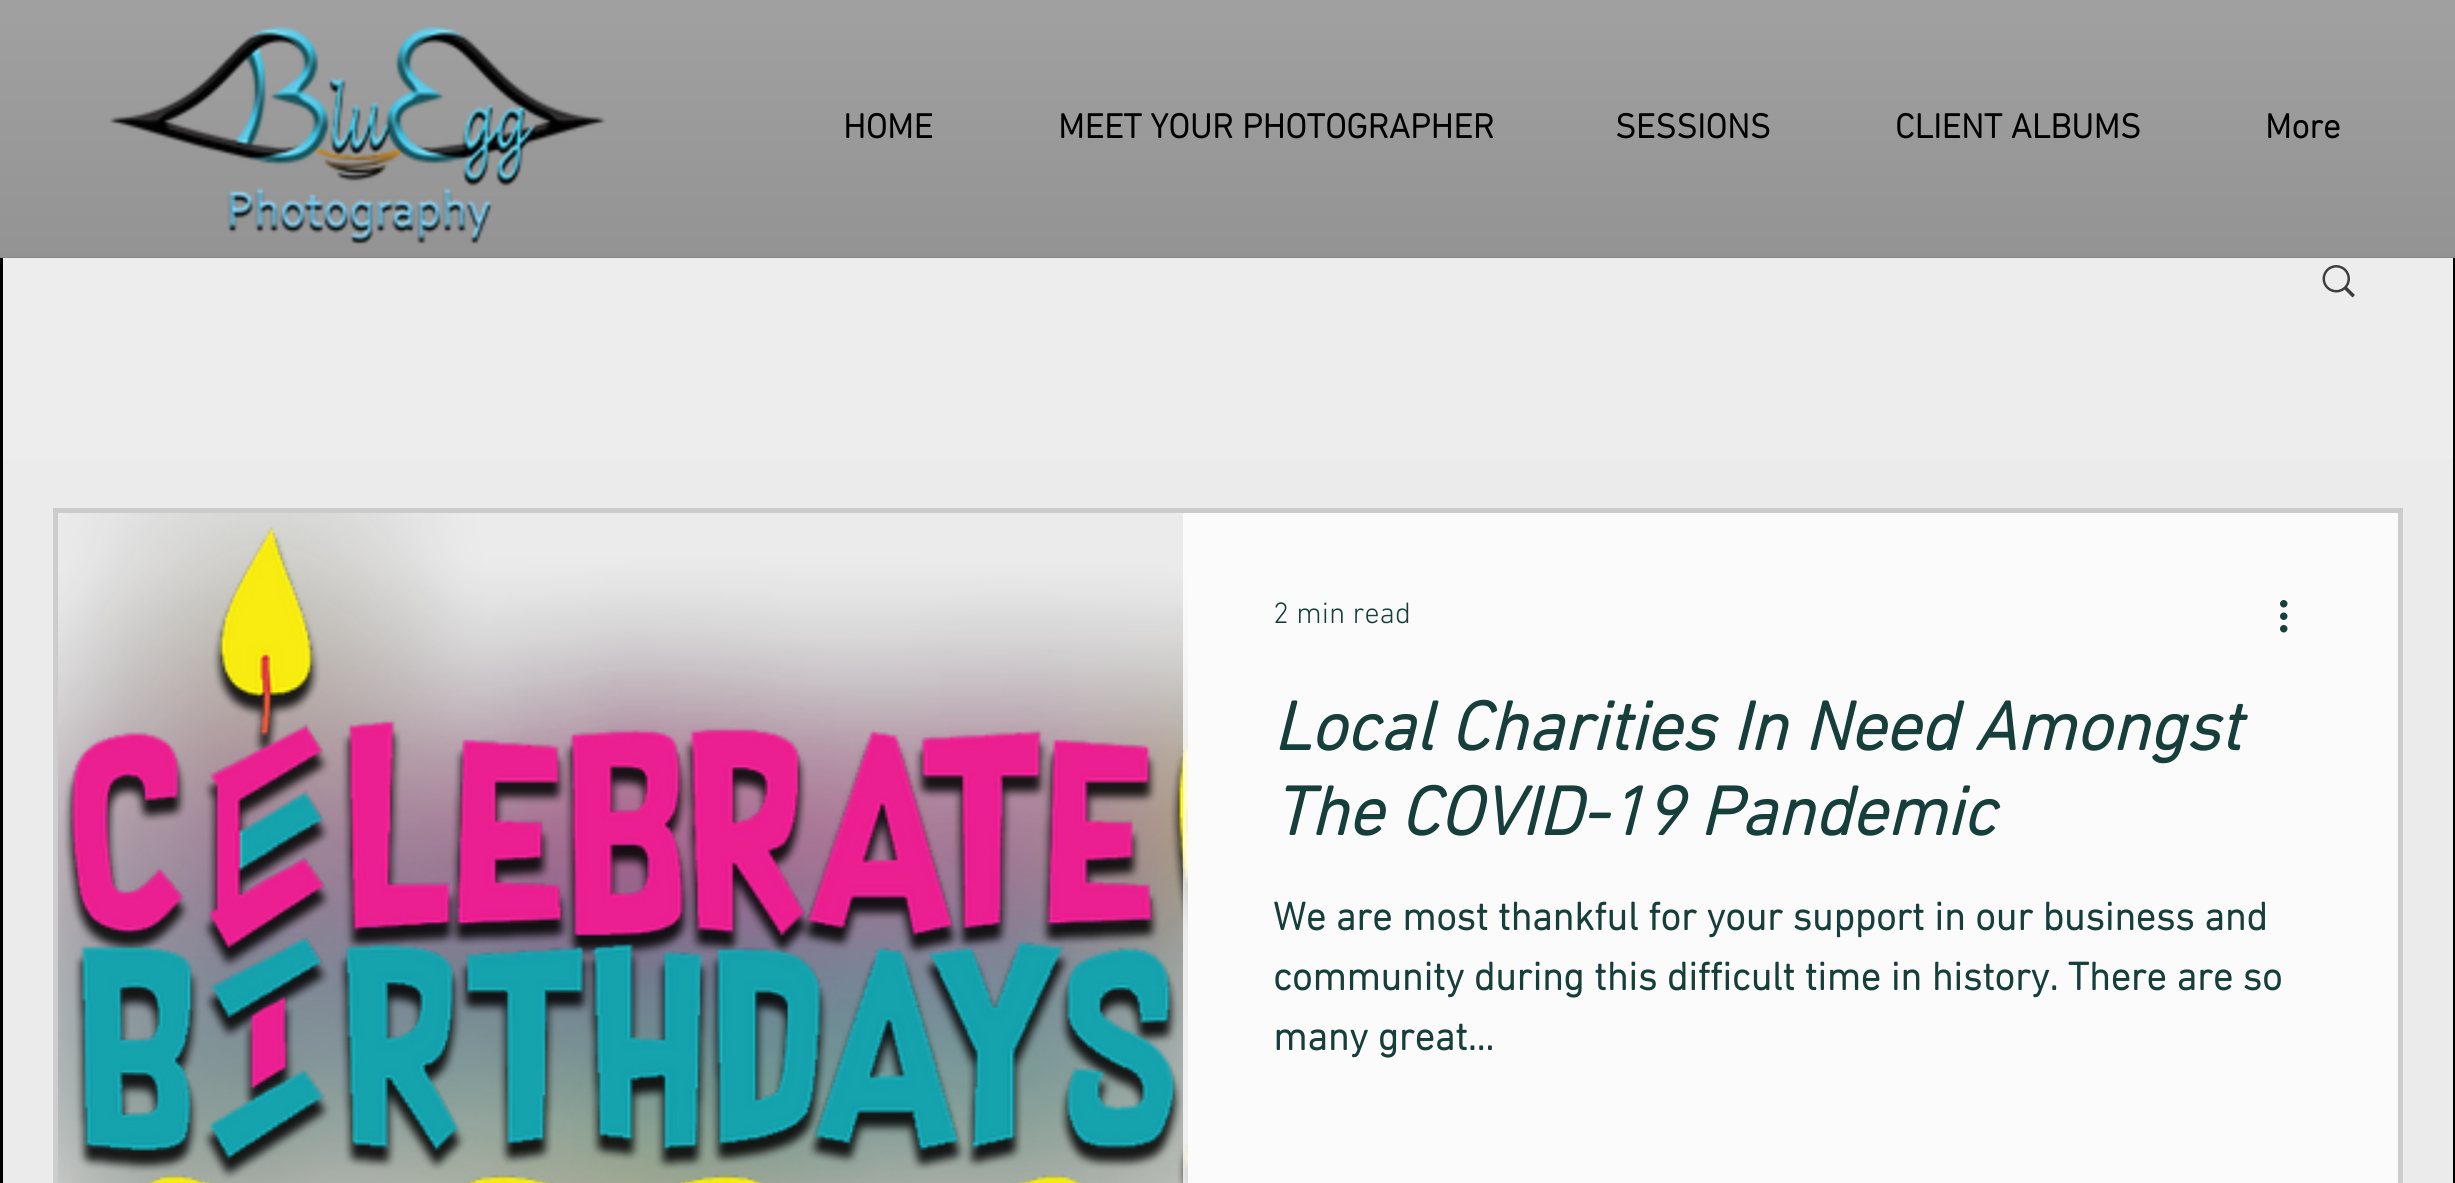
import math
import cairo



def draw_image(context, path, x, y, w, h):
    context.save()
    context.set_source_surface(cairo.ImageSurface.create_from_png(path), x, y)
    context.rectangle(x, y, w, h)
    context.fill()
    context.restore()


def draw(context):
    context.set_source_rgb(0, 0, 0)
    context.paint()
    context.set_source_rgb(128 / 255, 128 / 255, 128 / 255)
    context.rectangle(0, 0, 2455, 258)
    context.fill()
    draw_image(context, "images/1.png", 0, 0, 2455, 258)
    draw_image(context, "images/2.png", 109, 26, 497, 219)
    context.set_source_rgb(235 / 255, 235 / 255, 235 / 255)
    context.rectangle(3, 458, 2450, 725)
    context.fill()
    context.set_source_rgb(237 / 255, 237 / 255, 237 / 255)
    context.rectangle(3, 258, 2450, 200)
    context.fill()
    draw_image(context, "images/3.png", 2322, 265, 33, 33)
    context.rectangle(55.5, 510.5, 2345, 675)
    context.set_source_rgb(204 / 255, 204 / 255, 204 / 255)
    context.set_line_width(5)
    context.stroke()
    draw_image(context, "images/4.png", 58, 513, 1130, 670)
    draw_image(context, "images/5.png", 63, 527, 1125, 656)
    context.set_source_rgba(1, 1, 1, 0.8)
    context.rectangle(1183, 513, 1215, 670)
    context.fill()
    draw_image(context, "images/6.png", 2280, 600, 8, 33)
    context.select_font_face("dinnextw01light", cairo.FontSlant.NORMAL, cairo.FontWeight.BOLD)
    context.set_font_size(35)
    context.set_source_rgb(0, 0, 0)
    context.move_to(843, 138)
    context.show_text("HOME")
    context.move_to(1058, 138)
    context.show_text("MEET YOUR PHOTOGRAPHER")
    context.move_to(1615, 138)
    context.show_text("SESSIONS")
    context.move_to(1895, 138)
    context.show_text("CLIENT ALBUMS")
    context.move_to(2265, 138)
    context.show_text("More")
    context.select_font_face("dinnextw01light Light")
    context.set_font_size(30)
    context.set_source_rgb(22 / 255, 62 / 255, 58 / 255)
    context.move_to(1273, 623)
    context.show_text("2 min read")
    context.select_font_face("dinnextw01light", cairo.FontSlant.ITALIC, cairo.FontWeight.BOLD)
    context.set_font_size(70)
    context.move_to(1273, 750)
    context.show_text("Local Charities In Need Amongst")
    context.move_to(1273, 835)
    context.show_text("The COVID-19 Pandemic")
    context.select_font_face("dinnextw01light", cairo.FontSlant.NORMAL, cairo.FontWeight.BOLD)
    context.set_font_size(40)
    context.move_to(1273, 930)
    context.show_text("We are most thankful for your support in our business and")
    context.move_to(1273, 990)
    context.show_text("community during this difficult time in history. There are so")
    context.move_to(1273, 1050)
    context.show_text("many great...")


surface = cairo.ImageSurface(cairo.Format.RGB24, 2455, 1183)
context = cairo.Context(surface)
options = cairo.FontOptions()
options.set_hint_metrics(cairo.HintMetrics.OFF)
options.set_hint_style(cairo.HintStyle.NONE)
context.set_font_options(options)
context.set_miter_limit(4)
draw(context)
surface.write_to_png("out.png")
